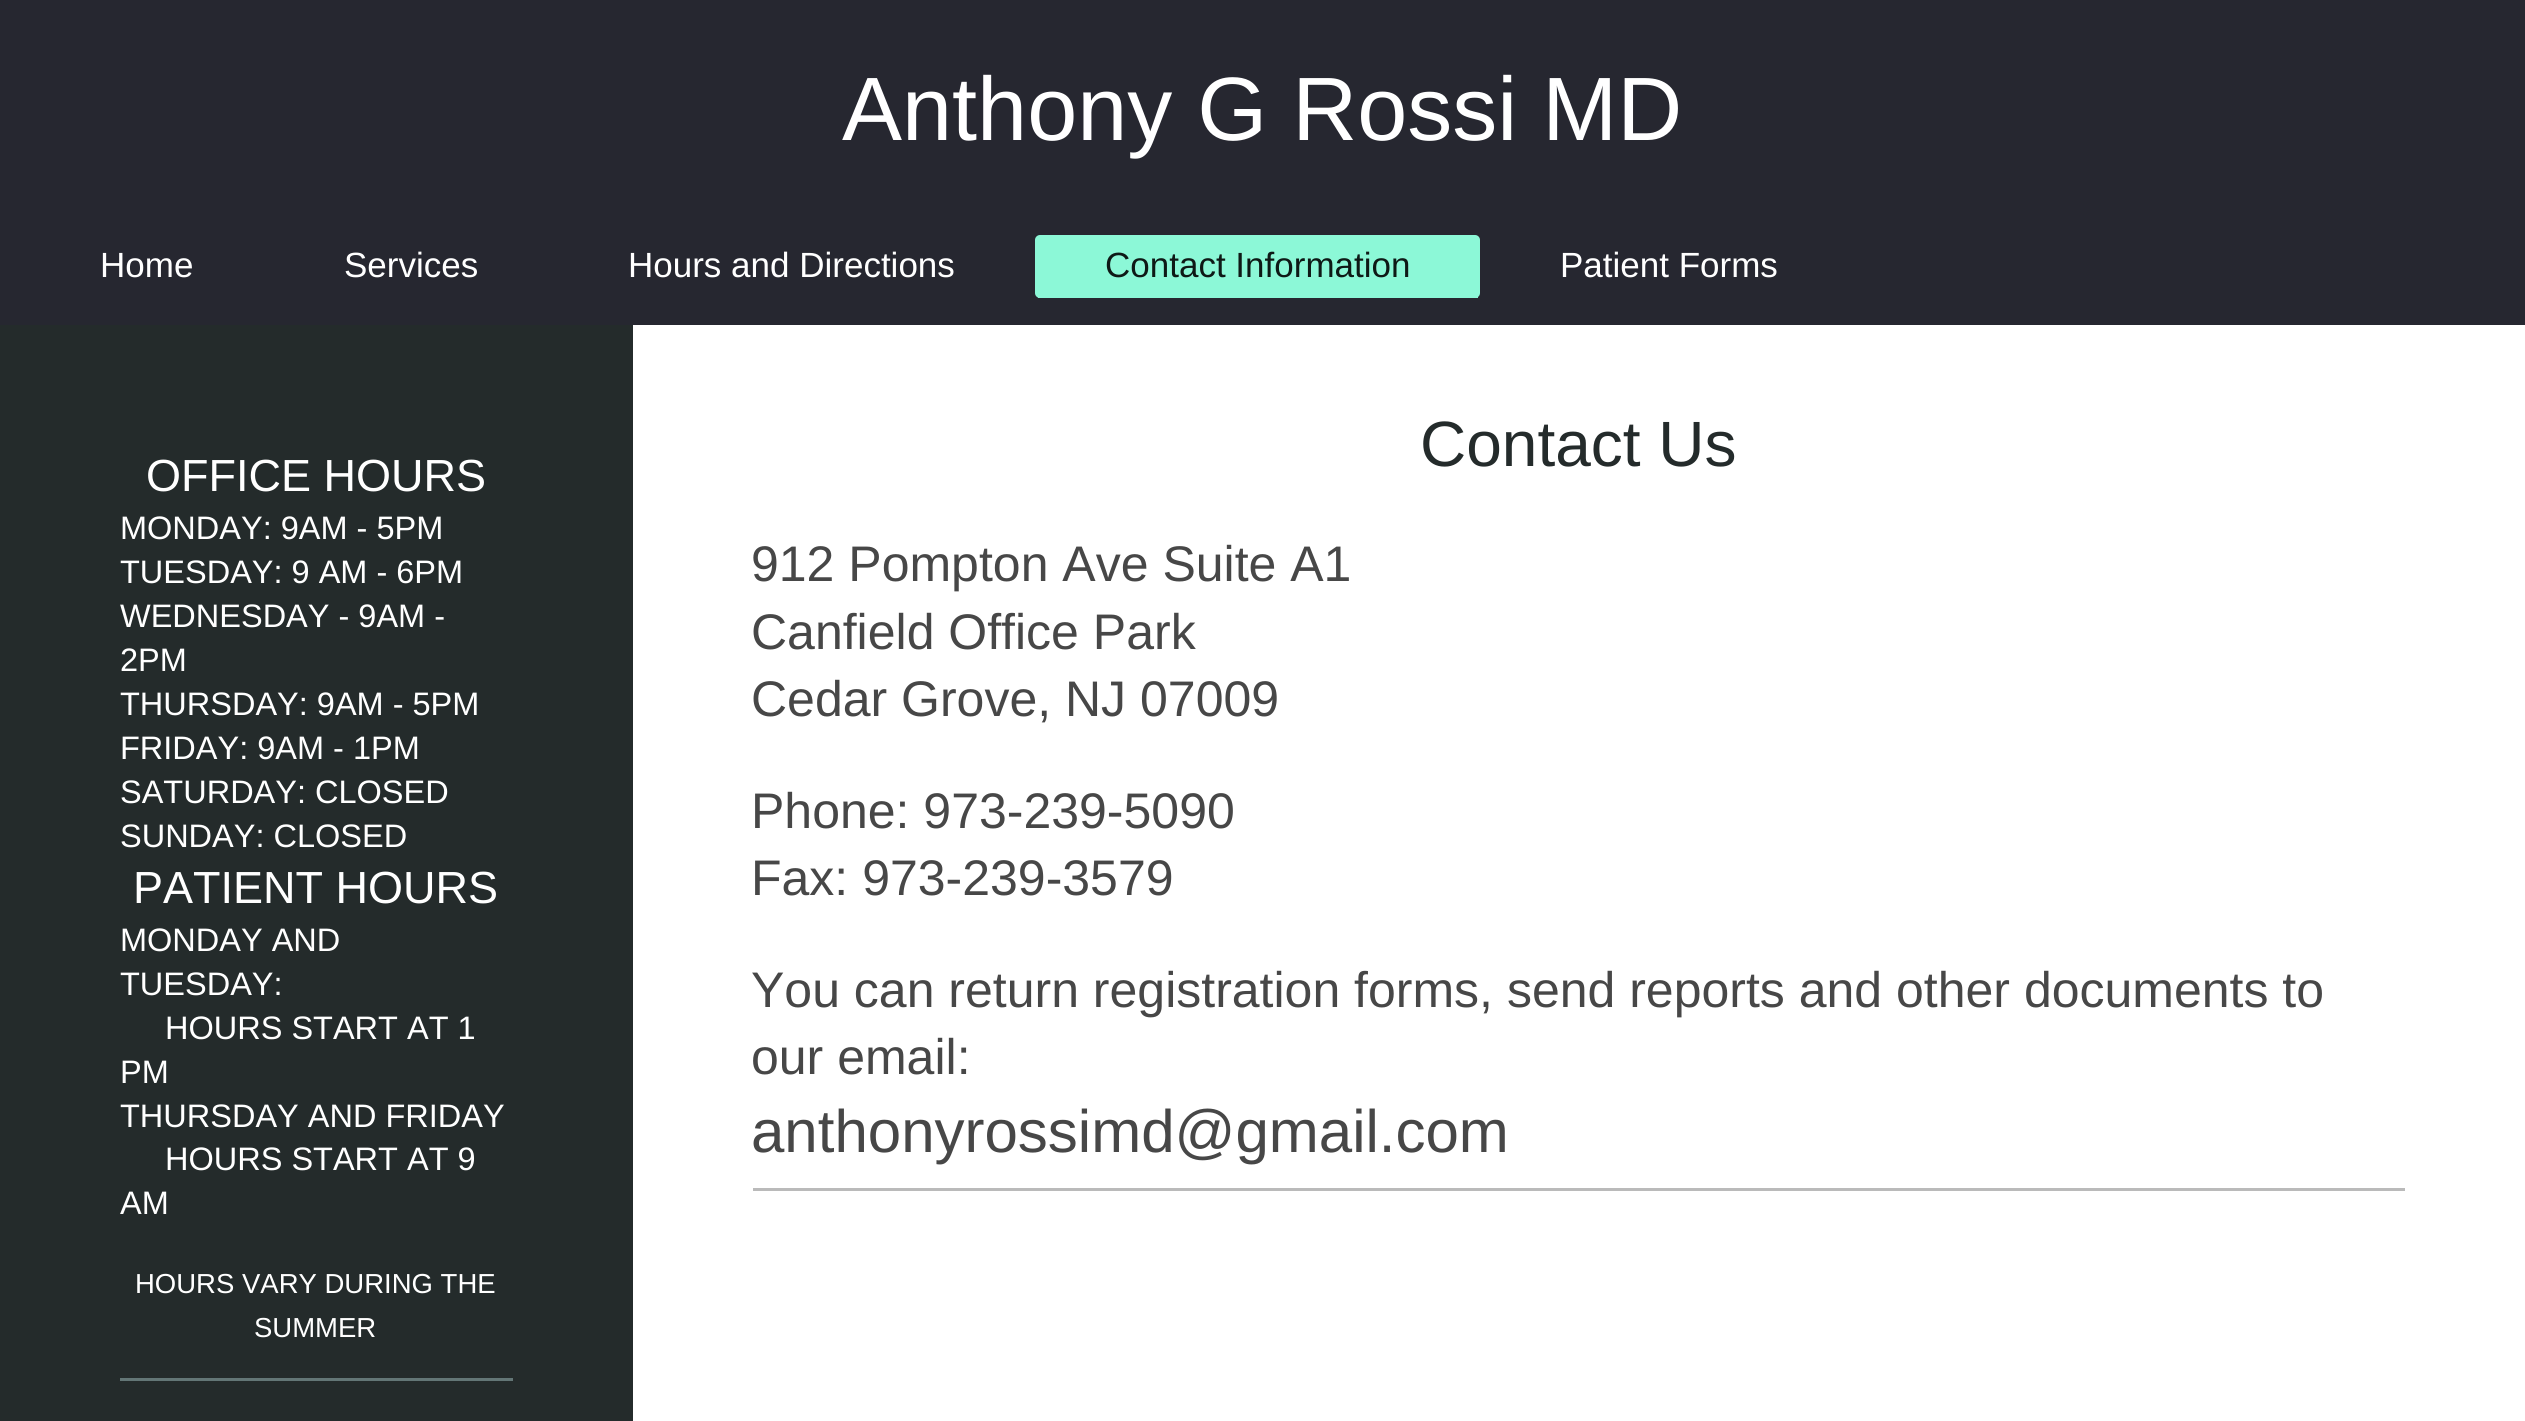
import math
import cairo



def rounded_rect(context, x, y, w, h, r):
    context.new_sub_path()
    for i, (u, v) in enumerate([(x + w - r, y + h - r), (x + r, y + h - r), (x + r, y + r), (x + w - r, y + r)]):
        context.arc(u, v, r, i * math.pi / 2, (i + 1) * math.pi / 2)
    context.close_path()


def draw(context):
    context.set_source_rgb(1, 1, 1)
    context.paint()
    context.set_source_rgb(38 / 255, 39 / 255, 48 / 255)
    context.rectangle(0, 0, 2525, 325)
    context.fill()
    context.set_source_rgb(140 / 255, 248 / 255, 215 / 255)
    rounded_rect(context, 1035, 235, 445, 63, 5)
    context.fill()
    context.rectangle(1038, 297, 440, 1)
    context.fill()
    context.set_source_rgb(36 / 255, 43 / 255, 43 / 255)
    context.rectangle(0, 325, 633, 1096)
    context.fill()
    context.set_source_rgb(99 / 255, 118 / 255, 118 / 255)
    context.rectangle(120, 1378, 393, 3)
    context.fill()
    context.set_source_rgb(186 / 255, 186 / 255, 186 / 255)
    context.rectangle(753, 1188, 1652, 3)
    context.fill()
    context.select_font_face("Liberation Sans")
    context.set_font_size(90)
    context.set_source_rgb(1, 1, 1)
    context.move_to(842, 140)
    context.show_text("Anthony G Rossi MD")
    context.set_font_size(35)
    context.move_to(100, 277)
    context.show_text("Home")
    context.move_to(344, 277)
    context.show_text("Services")
    context.move_to(628, 277)
    context.show_text("Hours and Directions")
    context.set_source_rgb(14 / 255, 25 / 255, 22 / 255)
    context.move_to(1105, 277)
    context.show_text("Contact Information")
    context.set_source_rgb(1, 1, 1)
    context.move_to(1560, 277)
    context.show_text("Patient Forms")
    context.set_font_size(45)
    context.move_to(146, 491)
    context.show_text("OFFICE HOURS")
    context.set_font_size(32.5)
    context.move_to(120, 539)
    context.show_text("MONDAY: 9AM - 5PM")
    context.move_to(120, 583)
    context.show_text("TUESDAY: 9 AM - 6PM")
    context.move_to(120, 627)
    context.show_text("WEDNESDAY - 9AM -")
    context.move_to(120, 671)
    context.show_text("2PM")
    context.move_to(120, 715)
    context.show_text("THURSDAY: 9AM - 5PM")
    context.move_to(120, 759)
    context.show_text("FRIDAY: 9AM - 1PM")
    context.move_to(120, 803)
    context.show_text("SATURDAY: CLOSED")
    context.move_to(120, 847)
    context.show_text("SUNDAY: CLOSED")
    context.set_font_size(45)
    context.move_to(133, 903)
    context.show_text("PATIENT HOURS")
    context.set_font_size(32.5)
    context.move_to(120, 951)
    context.show_text("MONDAY AND")
    context.move_to(120, 995)
    context.show_text("TUESDAY:")
    context.move_to(165, 1039)
    context.show_text("HOURS START AT 1")
    context.move_to(120, 1083)
    context.show_text("PM")
    context.move_to(120, 1127)
    context.show_text("THURSDAY AND FRIDAY")
    context.move_to(165, 1170)
    context.show_text("HOURS START AT 9")
    context.move_to(120, 1214)
    context.show_text("AM")
    context.set_font_size(27.5)
    context.move_to(135, 1293)
    context.show_text("HOURS VARY DURING THE")
    context.move_to(254, 1337)
    context.show_text("SUMMER")
    context.set_font_size(64)
    context.set_source_rgb(36 / 255, 43 / 255, 43 / 255)
    context.move_to(1420, 466)
    context.show_text("Contact Us")
    context.set_font_size(50)
    context.set_source_rgb(71 / 255, 71 / 255, 71 / 255)
    context.move_to(751, 581)
    context.show_text("912 Pompton Ave Suite A1")
    context.move_to(751, 649)
    context.show_text("Canfield Office Park")
    context.move_to(751, 716)
    context.show_text("Cedar Grove, NJ 07009")
    context.move_to(751, 828)
    context.show_text("Phone: 973-239-5090")
    context.move_to(751, 895)
    context.show_text("Fax: 973-239-3579")
    context.move_to(751, 1007)
    context.show_text("You can return registration forms, send reports and other documents to")
    context.move_to(751, 1074)
    context.show_text("our email:")
    context.set_font_size(60)
    context.move_to(751, 1152)
    context.show_text("anthonyrossimd@gmail.com")


surface = cairo.ImageSurface(cairo.Format.RGB24, 2525, 1421)
context = cairo.Context(surface)
options = cairo.FontOptions()
options.set_hint_metrics(cairo.HintMetrics.OFF)
options.set_hint_style(cairo.HintStyle.NONE)
context.set_font_options(options)
context.set_miter_limit(4)
draw(context)
surface.write_to_png("out.png")
